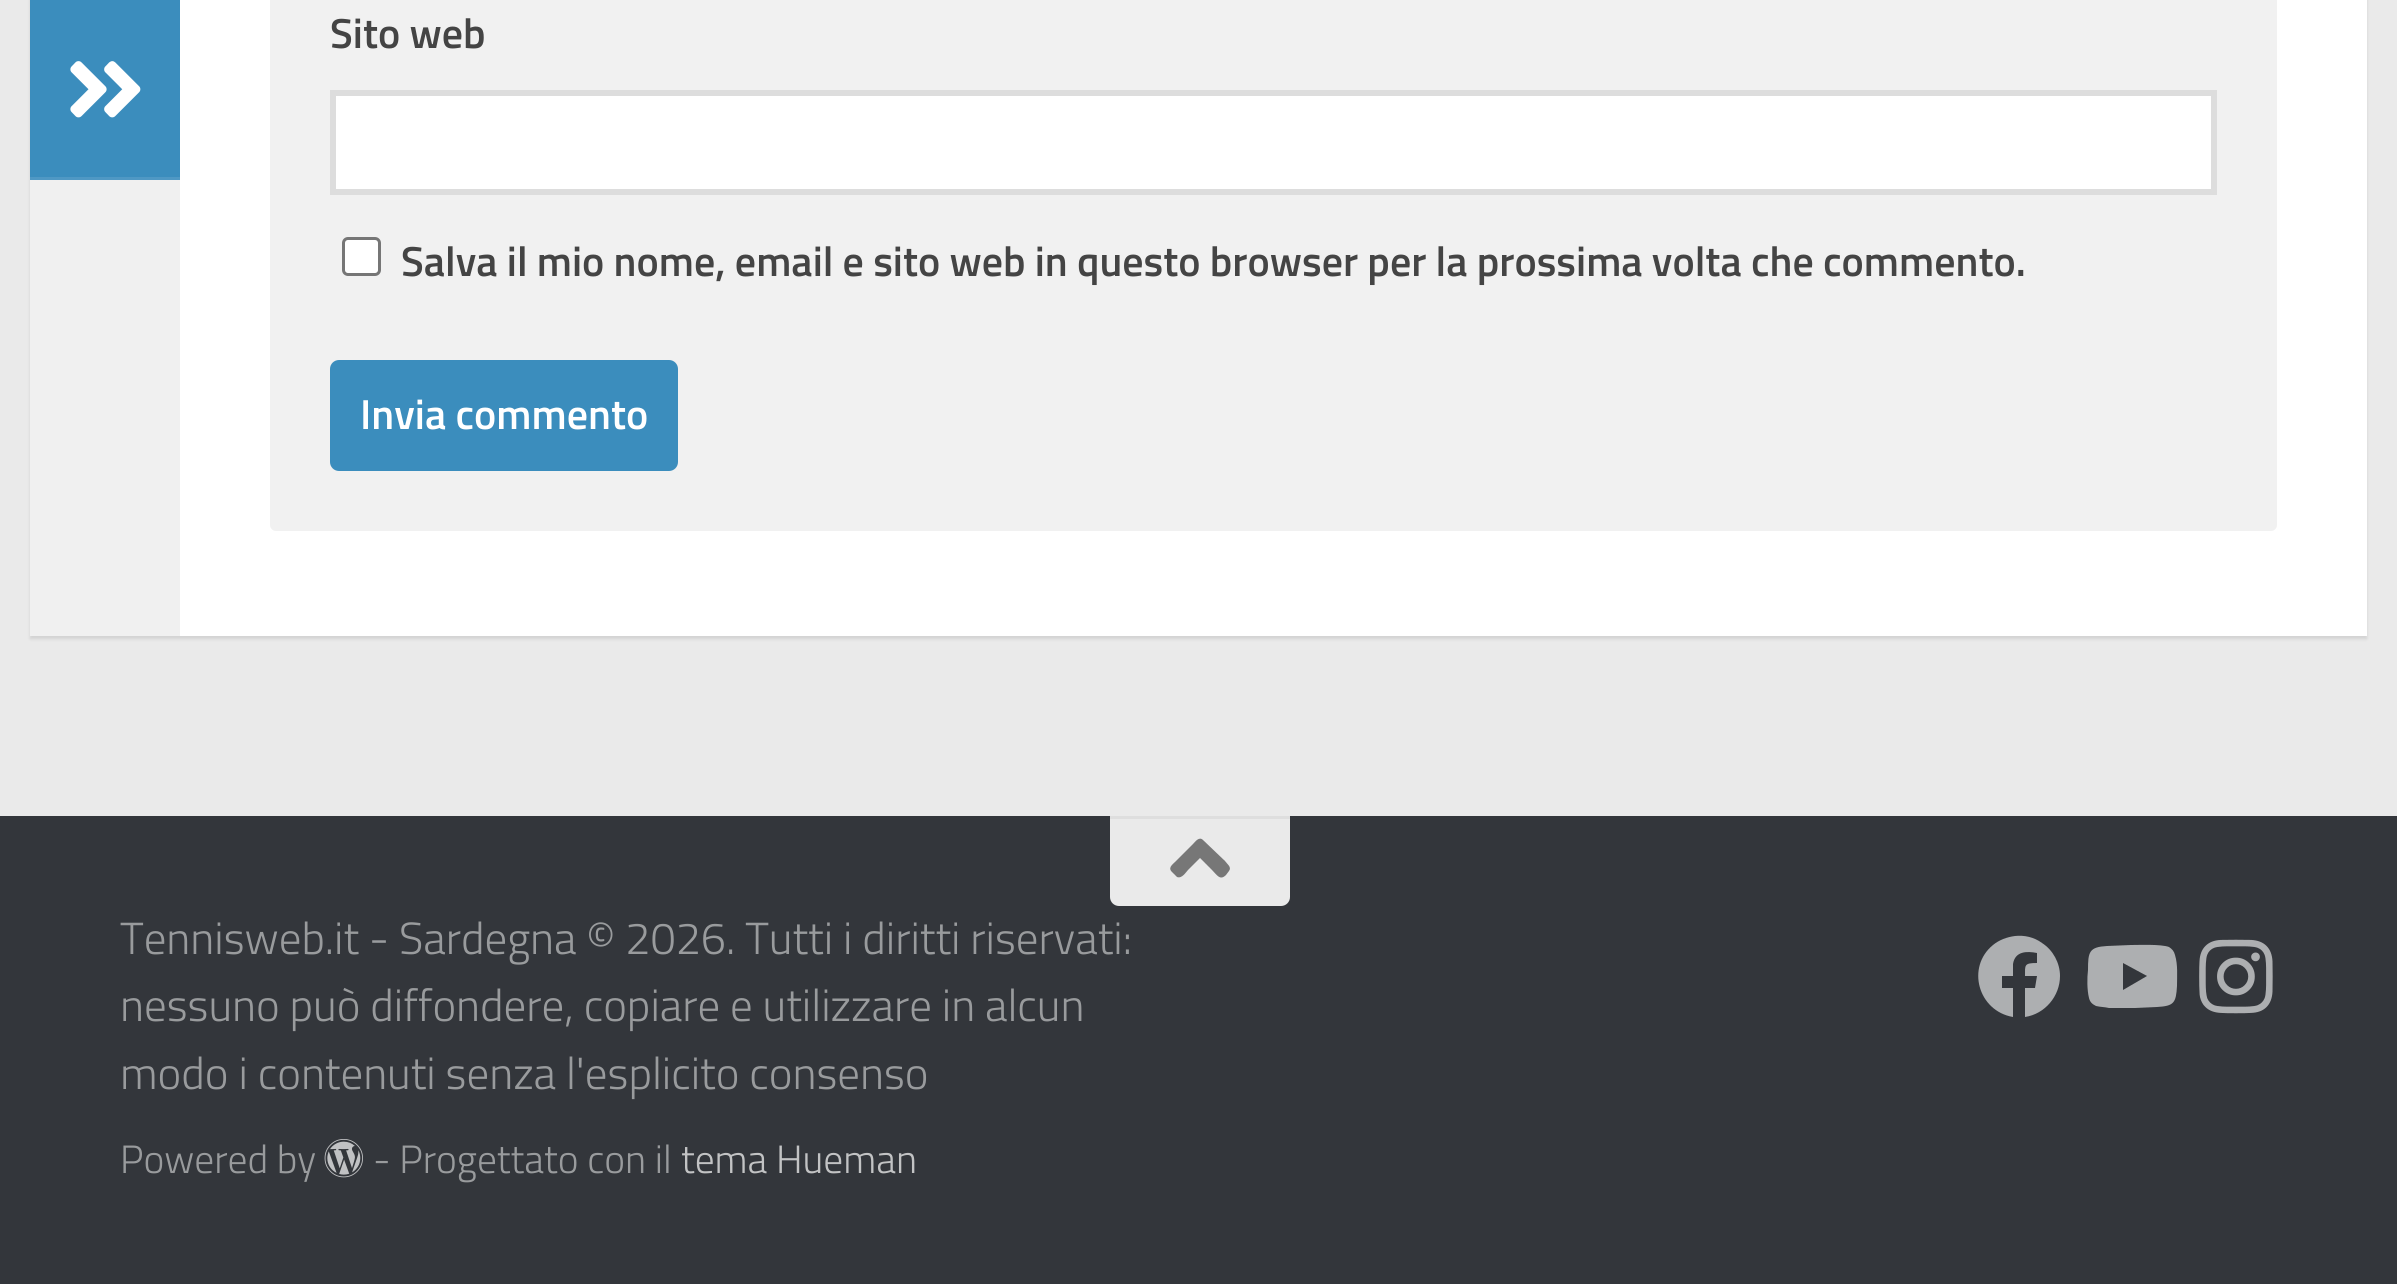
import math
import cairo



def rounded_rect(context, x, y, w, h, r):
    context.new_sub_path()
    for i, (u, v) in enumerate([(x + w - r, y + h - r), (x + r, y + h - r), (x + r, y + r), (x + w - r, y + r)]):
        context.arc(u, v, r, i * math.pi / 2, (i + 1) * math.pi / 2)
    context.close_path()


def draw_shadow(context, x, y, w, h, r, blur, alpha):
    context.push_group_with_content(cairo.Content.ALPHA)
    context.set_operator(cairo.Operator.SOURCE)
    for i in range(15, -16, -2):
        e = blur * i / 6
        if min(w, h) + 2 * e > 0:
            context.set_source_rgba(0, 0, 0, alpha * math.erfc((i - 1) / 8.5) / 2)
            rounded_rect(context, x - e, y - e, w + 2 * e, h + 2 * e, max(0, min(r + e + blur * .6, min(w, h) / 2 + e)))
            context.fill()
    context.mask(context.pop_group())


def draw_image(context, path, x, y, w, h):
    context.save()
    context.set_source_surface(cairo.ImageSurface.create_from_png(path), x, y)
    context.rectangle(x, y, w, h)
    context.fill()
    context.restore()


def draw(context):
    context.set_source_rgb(234 / 255, 234 / 255, 234 / 255)
    context.paint()
    context.set_source_rgb(0, 0, 0)
    draw_shadow(context, 30, -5, 2337, 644, 0, 1.5, 0.1)
    context.set_source_rgb(1, 1, 1)
    context.rectangle(180, 0, 2187, 636)
    context.fill()
    context.set_source_rgb(240 / 255, 240 / 255, 240 / 255)
    context.rectangle(30, 180, 150, 456)
    context.fill()
    context.set_source_rgb(59 / 255, 141 / 255, 189 / 255)
    context.rectangle(30, 0, 150, 177)
    context.fill()
    context.set_source_rgb(79 / 255, 152 / 255, 196 / 255)
    context.rectangle(30, 177, 150, 3)
    context.fill()
    draw_image(context, "images/1.png", 70, 61, 71, 57)
    context.set_source_rgb(241 / 255, 241 / 255, 241 / 255)
    rounded_rect(context, 270, -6, 2007, 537, 6)
    context.fill()
    context.set_source_rgb(1, 1, 1)
    context.rectangle(333, 93, 1881, 99)
    context.fill_preserve()
    context.set_source_rgb(221 / 255, 221 / 255, 221 / 255)
    context.set_line_width(6)
    context.stroke()
    context.set_source_rgb(1, 1, 1)
    rounded_rect(context, 343.5, 238.5, 36, 36, 4.5)
    context.fill_preserve()
    context.set_source_rgb(118 / 255, 118 / 255, 118 / 255)
    context.set_line_width(3)
    context.stroke()
    context.set_source_rgb(59 / 255, 141 / 255, 189 / 255)
    rounded_rect(context, 330, 360, 348, 111, 9)
    context.fill()
    context.set_source_rgb(51 / 255, 54 / 255, 59 / 255)
    context.rectangle(0, 816, 2397, 468)
    context.fill()
    context.set_source_rgb(234 / 255, 234 / 255, 234 / 255)
    context.new_path()
    context.move_to(1110, 816)
    context.line_to(1290, 816)
    context.line_to(1290, 897)
    context.curve_to(1290, 902, 1286, 906, 1281, 906)
    context.line_to(1119, 906)
    context.curve_to(1114, 906, 1110, 902, 1110, 897)
    context.close_path()
    context.fill()
    context.set_source_rgb(222 / 255, 222 / 255, 222 / 255)
    context.rectangle(1110, 816, 180, 3)
    context.fill()
    context.set_source_rgb(119 / 255, 119 / 255, 119 / 255)
    context.new_path()
    context.move_to(1203, 840)
    context.line_to(1225, 861)
    context.curve_to(1227, 864, 1232, 867, 1229, 871)
    context.line_to(1226, 875)
    context.curve_to(1220, 881, 1217, 875, 1212, 870)
    context.line_to(1200, 858)
    context.line_to(1188, 870)
    context.curve_to(1186, 872, 1182, 879, 1177, 877)
    context.line_to(1173, 873)
    context.curve_to(1167, 868, 1172, 865, 1176, 861)
    context.line_to(1193, 844)
    context.curve_to(1195, 842, 1199, 836, 1203, 840)
    context.close_path()
    context.fill()
    draw_image(context, "images/2.png", 324, 1139, 39, 39)
    context.set_source_rgb(173 / 255, 175 / 255, 177 / 255)
    context.new_path()
    context.move_to(2060, 976)
    context.curve_to(2060, 996, 2045, 1014, 2025, 1017)
    context.line_to(2025, 988)
    context.line_to(2035, 988)
    context.line_to(2037, 976)
    context.line_to(2025, 976)
    context.curve_to(2025, 965, 2024, 963, 2037, 963)
    context.line_to(2037, 953)
    context.curve_to(2027, 951, 2015, 951, 2013, 964)
    context.line_to(2013, 976)
    context.line_to(2002, 976)
    context.line_to(2002, 988)
    context.line_to(2013, 988)
    context.line_to(2013, 1017)
    context.curve_to(1978, 1011, 1966, 967, 1993, 945)
    context.curve_to(1999, 940, 2007, 937, 2015, 936)
    context.curve_to(2024, 935, 2034, 937, 2042, 943)
    context.curve_to(2053, 950, 2060, 963, 2060, 976)
    context.close_path()
    context.fill()
    context.new_path()
    context.move_to(2175, 955)
    context.curve_to(2178, 965, 2177, 976, 2177, 986)
    context.curve_to(2176, 1003, 2174, 1006, 2157, 1007)
    context.line_to(2135, 1008)
    context.line_to(2109, 1008)
    context.curve_to(2105, 1007, 2100, 1007, 2096, 1006)
    context.curve_to(2092, 1004, 2090, 1002, 2089, 998)
    context.curve_to(2087, 990, 2087, 978, 2088, 970)
    context.curve_to(2088, 952, 2089, 947, 2107, 946)
    context.line_to(2131, 945)
    context.curve_to(2139, 945, 2161, 944, 2169, 947)
    context.curve_to(2172, 949, 2174, 951, 2175, 955)
    context.close_path()
    context.move_to(2123, 990)
    context.line_to(2147, 976)
    context.line_to(2123, 963)
    context.close_path()
    context.fill()
    draw_image(context, "images/3.png", 2199, 939, 74, 75)
    context.select_font_face("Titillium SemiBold")
    context.set_font_size(42)
    context.set_source_rgb(68 / 255, 68 / 255, 68 / 255)
    context.move_to(330, 48)
    context.show_text("Sito web")
    context.move_to(401, 276)
    context.show_text("Salva il mio nome, email e sito web in questo browser per la prossima volta che commento.")
    context.set_source_rgb(1, 1, 1)
    context.move_to(360, 429)
    context.show_text("Invia commento")
    context.select_font_face("Titillium Light")
    context.set_font_size(45)
    context.set_source_rgb(153 / 255, 155 / 255, 157 / 255)
    context.move_to(120, 954)
    context.show_text("Tennisweb.it - Sardegna © 2026. Tutti i diritti riservati:")
    context.move_to(120, 1021)
    context.show_text("nessuno può diffondere, copiare e utilizzare in alcun")
    context.move_to(120, 1089)
    context.show_text("modo i contenuti senza l'esplicito consenso")
    context.set_font_size(39.5)
    context.move_to(120, 1173)
    context.show_text("Powered by")
    context.move_to(373, 1173)
    context.show_text("- Progettato con il")
    context.set_source_rgb(194 / 255, 195 / 255, 196 / 255)
    context.move_to(681, 1173)
    context.show_text("tema Hueman")


surface = cairo.ImageSurface(cairo.Format.RGB24, 2397, 1284)
context = cairo.Context(surface)
options = cairo.FontOptions()
options.set_hint_metrics(cairo.HintMetrics.OFF)
options.set_hint_style(cairo.HintStyle.NONE)
context.set_font_options(options)
context.set_miter_limit(4)
draw(context)
surface.write_to_png("out.png")
